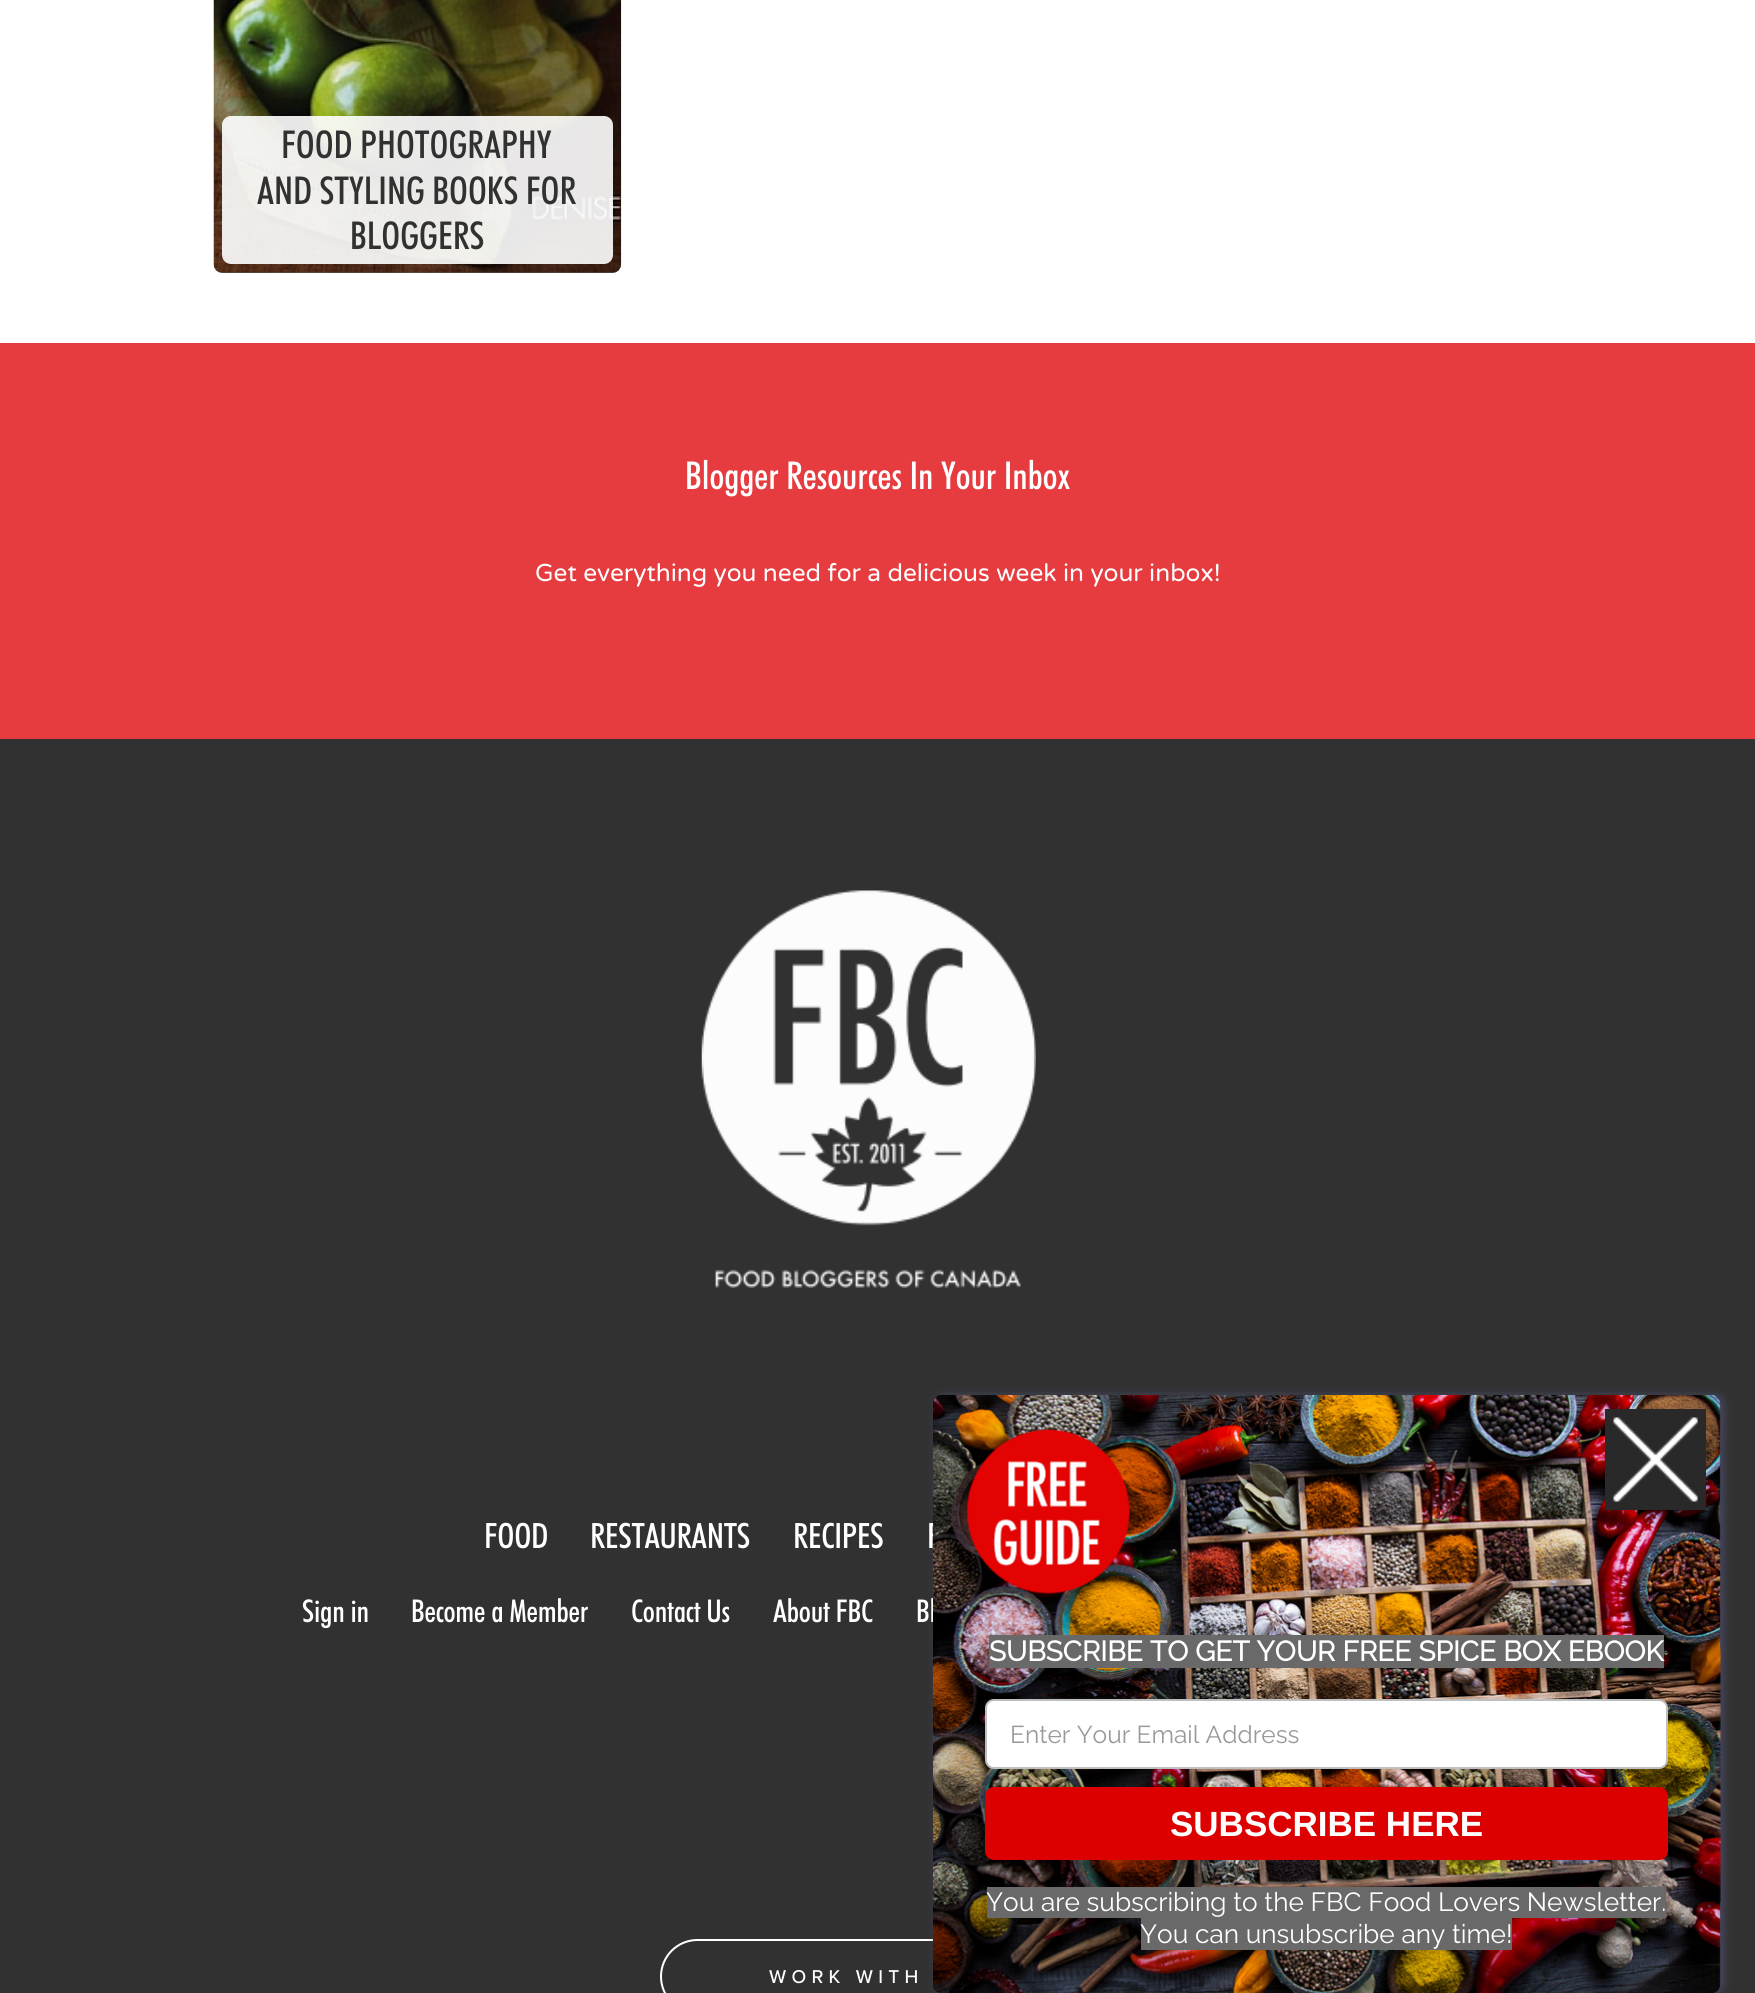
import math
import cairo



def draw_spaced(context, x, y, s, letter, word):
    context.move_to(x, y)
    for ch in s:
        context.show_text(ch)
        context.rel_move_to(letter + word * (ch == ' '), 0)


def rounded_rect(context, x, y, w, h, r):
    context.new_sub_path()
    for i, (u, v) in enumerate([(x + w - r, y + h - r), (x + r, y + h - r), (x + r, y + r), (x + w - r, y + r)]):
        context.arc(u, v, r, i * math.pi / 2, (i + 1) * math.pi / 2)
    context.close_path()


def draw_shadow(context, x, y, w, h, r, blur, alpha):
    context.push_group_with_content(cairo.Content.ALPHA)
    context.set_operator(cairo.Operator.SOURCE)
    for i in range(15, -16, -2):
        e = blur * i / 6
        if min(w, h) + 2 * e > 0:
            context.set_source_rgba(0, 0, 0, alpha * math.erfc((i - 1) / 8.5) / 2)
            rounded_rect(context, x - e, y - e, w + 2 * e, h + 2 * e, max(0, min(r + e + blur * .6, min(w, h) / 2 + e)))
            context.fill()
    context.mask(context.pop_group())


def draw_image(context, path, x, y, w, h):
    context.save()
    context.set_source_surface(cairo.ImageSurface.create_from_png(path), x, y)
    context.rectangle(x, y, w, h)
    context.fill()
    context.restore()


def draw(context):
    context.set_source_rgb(1, 1, 1)
    context.paint()
    context.set_source_rgb(99 / 255, 100 / 255, 101 / 255)
    rounded_rect(context, 214, -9, 407, 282, 9)
    context.fill()
    draw_image(context, "images/1.png", 213, 0, 409, 273)
    context.set_source_rgba(1, 1, 1, 0.9)
    rounded_rect(context, 222, 116, 391, 148, 9)
    context.fill()
    context.set_source_rgb(230 / 255, 60 / 255, 64 / 255)
    context.rectangle(0, 343, 1755, 396)
    context.fill()
    context.set_source_rgb(49 / 255, 49 / 255, 49 / 255)
    context.rectangle(0, 739, 1755, 1254)
    context.fill()
    draw_image(context, "images/2.png", 701, 890, 335, 398)
    rounded_rect(context, 661, 1940, 418, 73, 36.5)
    context.set_source_rgb(1, 1, 1)
    context.stroke()
    context.set_source_rgb(86 / 255, 86 / 255, 131 / 255)
    draw_shadow(context, 936, 1395, 788, 598, 9, 4.5, 0.6)
    context.select_font_face("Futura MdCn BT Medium")
    context.set_font_size(38.5)
    context.set_source_rgb(49 / 255, 49 / 255, 49 / 255)
    context.move_to(281, 158)
    context.show_text("FOOD PHOTOGRAPHY")
    context.move_to(257, 204)
    context.show_text("AND STYLING BOOKS FOR")
    context.move_to(350, 249)
    context.show_text("BLOGGERS")
    context.set_source_rgb(1, 1, 1)
    context.move_to(685, 489)
    context.show_text("Blogger Resources In Your Inbox")
    context.select_font_face("Varela Round")
    context.set_font_size(24.5)
    context.move_to(535, 581)
    context.show_text("Get everything you need for a delicious week in your inbox!")
    context.select_font_face("Futura MdCn BT Medium")
    context.set_font_size(35)
    draw_spaced(context, 484, 1548, "FOOD", -0.25, 0)
    draw_spaced(context, 590, 1548, "RESTAURANTS", -0.25, 0)
    draw_spaced(context, 793, 1548, "RECIPES", -0.25, 0)
    draw_spaced(context, 927, 1548, "F", -0.25, 0)
    context.set_font_size(31.5)
    draw_spaced(context, 302, 1622, "Sign in", -0.2, 0)
    draw_spaced(context, 411, 1622, "Become a Member", -0.2, 0)
    draw_spaced(context, 631, 1622, "Contact Us", -0.2, 0)
    draw_spaced(context, 773, 1622, "About FBC", -0.2, 0)
    draw_spaced(context, 916, 1622, "Bl", -0.2, 0)
    context.select_font_face("Proxima Nova Medium")
    context.set_font_size(19.25)
    draw_spaced(context, 769, 1983, "WORK WITH", 5.25, 0)
    draw_image(context, "images/4.png", 933, 1395, 788, 598)
    context.set_source_rgb(41 / 255, 41 / 255, 41 / 255)
    context.rectangle(1605, 1409, 101, 101)
    context.fill()
    draw_image(context, "images/3.png", 1613, 1417, 85, 85)
    draw_image(context, "images/5.png", 966, 1429, 164, 165)
    context.set_source_rgb(105 / 255, 105 / 255, 105 / 255)
    context.rectangle(989, 1635, 675, 33)
    context.fill()
    context.select_font_face("Raleway", cairo.FontSlant.NORMAL, cairo.FontWeight.BOLD)
    context.set_font_size(28)
    context.set_source_rgb(1, 1, 1)
    context.move_to(989, 1661)
    context.show_text("SUBSCRIBE TO GET YOUR FREE SPICE BOX EBOOK")
    rounded_rect(context, 986, 1700, 681, 68, 8)
    context.fill_preserve()
    context.set_source_rgb(191 / 255, 190 / 255, 190 / 255)
    context.stroke()
    context.select_font_face("Raleway Thin")
    context.set_font_size(24.5)
    context.set_source_rgb(153 / 255, 153 / 255, 153 / 255)
    context.move_to(1010, 1743)
    context.show_text("Enter Your Email Address")
    context.set_source_rgb(221 / 255, 0, 0)
    rounded_rect(context, 985, 1787, 683, 73, 9)
    context.fill()
    context.select_font_face("Liberation Sans", cairo.FontSlant.NORMAL, cairo.FontWeight.BOLD)
    context.set_font_size(35)
    context.set_source_rgb(1, 1, 1)
    context.move_to(1170, 1836)
    context.show_text("SUBSCRIBE HERE")
    context.set_source_rgb(105 / 255, 105 / 255, 105 / 255)
    context.rectangle(987, 1887, 679, 31)
    context.fill()
    context.select_font_face("Raleway Thin")
    context.set_font_size(26.25)
    context.set_source_rgb(1, 1, 1)
    context.move_to(986, 1911)
    context.show_text("You are subscribing to the FBC Food Lovers Newsletter.")
    context.set_source_rgb(105 / 255, 105 / 255, 105 / 255)
    context.rectangle(1141, 1918, 371, 32)
    context.fill()
    context.set_source_rgb(1, 1, 1)
    context.move_to(1140, 1943)
    context.show_text("You can unsubscribe any time!")


surface = cairo.ImageSurface(cairo.Format.RGB24, 1755, 1993)
context = cairo.Context(surface)
options = cairo.FontOptions()
options.set_hint_metrics(cairo.HintMetrics.OFF)
options.set_hint_style(cairo.HintStyle.NONE)
context.set_font_options(options)
context.set_miter_limit(4)
draw(context)
surface.write_to_png("out.png")
